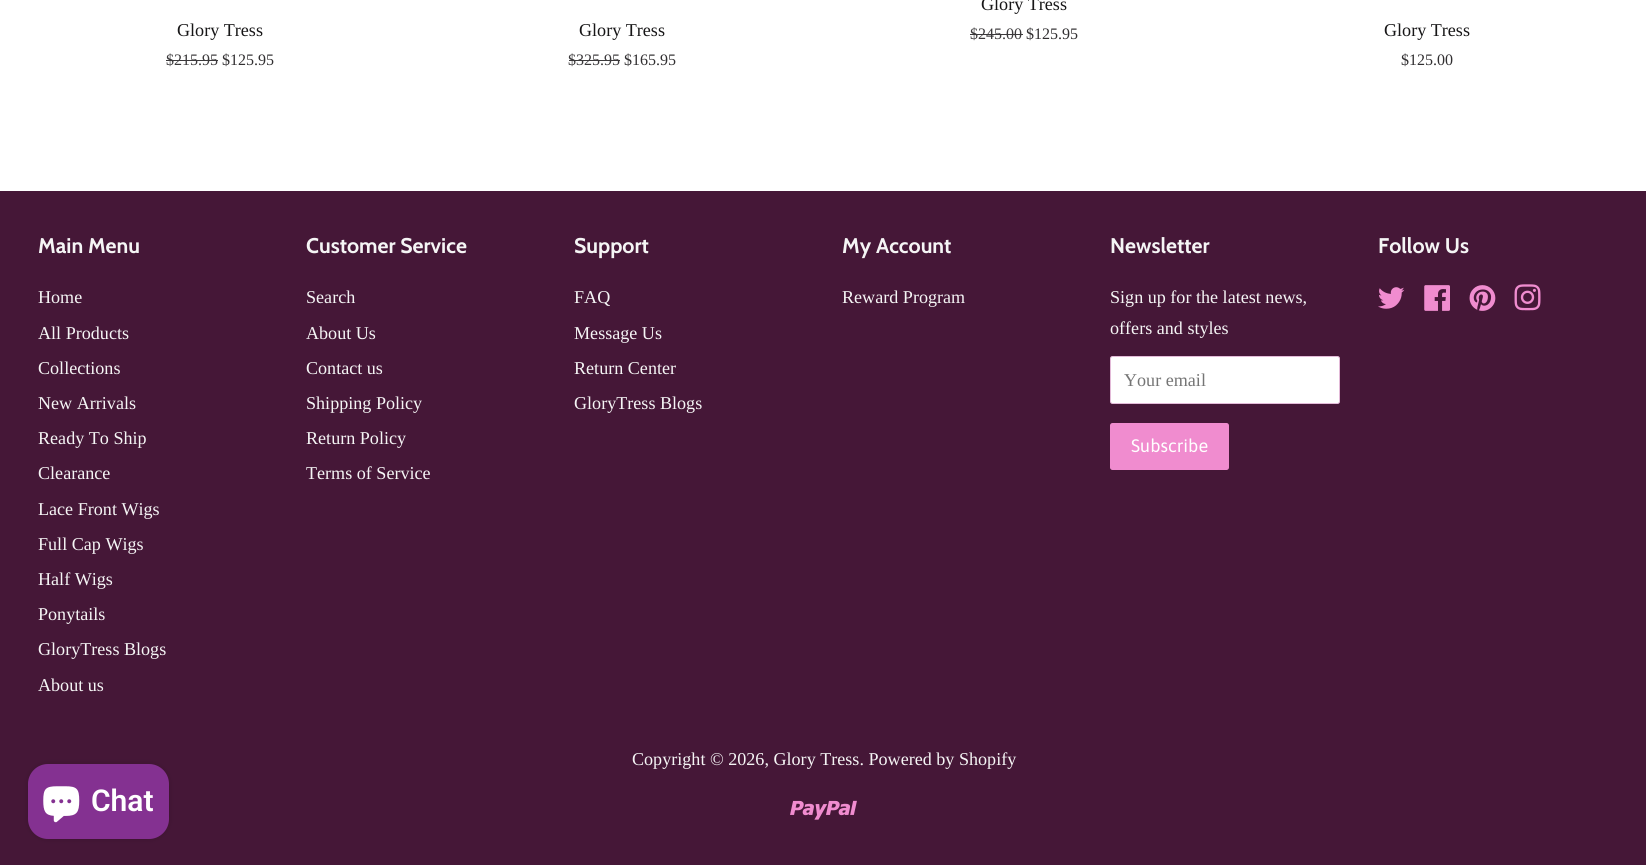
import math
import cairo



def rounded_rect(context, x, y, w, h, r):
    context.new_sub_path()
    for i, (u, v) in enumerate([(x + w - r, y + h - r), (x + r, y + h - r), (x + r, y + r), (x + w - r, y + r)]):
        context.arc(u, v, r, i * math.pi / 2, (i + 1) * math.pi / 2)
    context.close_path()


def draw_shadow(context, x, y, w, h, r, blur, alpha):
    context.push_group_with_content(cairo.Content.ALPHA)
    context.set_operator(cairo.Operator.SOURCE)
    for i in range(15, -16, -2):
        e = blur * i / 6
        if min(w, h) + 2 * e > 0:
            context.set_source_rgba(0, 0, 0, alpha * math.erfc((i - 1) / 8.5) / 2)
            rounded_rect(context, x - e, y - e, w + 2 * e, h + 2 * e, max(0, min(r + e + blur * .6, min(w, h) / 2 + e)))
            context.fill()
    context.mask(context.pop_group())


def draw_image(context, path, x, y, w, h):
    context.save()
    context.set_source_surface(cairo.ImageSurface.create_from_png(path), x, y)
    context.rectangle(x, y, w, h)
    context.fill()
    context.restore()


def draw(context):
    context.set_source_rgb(1, 1, 1)
    context.paint()
    context.set_source_rgb(59 / 255, 57 / 255, 59 / 255)
    context.rectangle(166, 60, 52, 1)
    context.fill()
    context.rectangle(569, 60, 51, 1)
    context.fill()
    context.rectangle(970, 34, 53, 1)
    context.fill()
    context.set_source_rgb(69 / 255, 23 / 255, 55 / 255)
    context.rectangle(0, 191, 1646, 674)
    context.fill()
    context.set_source_rgb(1, 1, 1)
    rounded_rect(context, 1110.5, 356.5, 229, 47, 2)
    context.fill_preserve()
    context.set_source_rgb(227 / 255, 186 / 255, 216 / 255)
    context.set_line_width(1)
    context.stroke()
    context.set_source_rgb(240 / 255, 140 / 255, 207 / 255)
    rounded_rect(context, 1110, 423, 119, 47, 2.5)
    context.fill()
    draw_image(context, "images/1.png", 1378, 287, 27, 22)
    draw_image(context, "images/2.png", 1424, 285, 26, 26)
    draw_image(context, "images/3.png", 1469, 285, 27, 26)
    draw_image(context, "images/4.png", 1514, 284, 27, 27)
    draw_image(context, "images/5.png", 790, 800, 67, 20)
    context.set_source_rgb(0, 0, 0)
    draw_shadow(context, 28, 764, 141, 75, 20, 3, 0.15)
    context.set_source_rgb(132 / 255, 49 / 255, 145 / 255)
    rounded_rect(context, 28, 764, 141, 75, 20)
    context.fill()
    draw_image(context, "images/6.png", 43, 786, 37, 37)
    context.select_font_face("Liberation Serif")
    context.set_font_size(18.1)
    context.set_source_rgb(23 / 255, 22 / 255, 23 / 255)
    context.move_to(177, 36)
    context.show_text("Glory Tress")
    context.set_font_size(16)
    context.set_source_rgb(59 / 255, 57 / 255, 59 / 255)
    context.move_to(166, 65)
    context.show_text("$215.95")
    context.set_source_rgb(49 / 255, 47 / 255, 49 / 255)
    context.move_to(222, 65)
    context.show_text("$125.95")
    context.set_font_size(18.1)
    context.set_source_rgb(23 / 255, 22 / 255, 23 / 255)
    context.move_to(579, 36)
    context.show_text("Glory Tress")
    context.set_font_size(16)
    context.set_source_rgb(59 / 255, 57 / 255, 59 / 255)
    context.move_to(568, 65)
    context.show_text("$325.95")
    context.set_source_rgb(49 / 255, 47 / 255, 49 / 255)
    context.move_to(624, 65)
    context.show_text("$165.95")
    context.set_font_size(18.1)
    context.set_source_rgb(23 / 255, 22 / 255, 23 / 255)
    context.move_to(981, 10)
    context.show_text("Glory Tress")
    context.set_font_size(16)
    context.set_source_rgb(59 / 255, 57 / 255, 59 / 255)
    context.move_to(970, 39)
    context.show_text("$245.00")
    context.set_source_rgb(49 / 255, 47 / 255, 49 / 255)
    context.move_to(1026, 39)
    context.show_text("$125.95")
    context.set_font_size(18.1)
    context.set_source_rgb(23 / 255, 22 / 255, 23 / 255)
    context.move_to(1384, 36)
    context.show_text("Glory Tress")
    context.set_font_size(16)
    context.set_source_rgb(49 / 255, 47 / 255, 49 / 255)
    context.move_to(1401, 65)
    context.show_text("$125.00")
    context.select_font_face("Cabin", cairo.FontSlant.NORMAL, cairo.FontWeight.BOLD)
    context.set_font_size(21.25)
    context.set_source_rgb(245 / 255, 245 / 255, 245 / 255)
    context.move_to(38, 253)
    context.show_text("Main Menu")
    context.select_font_face("Liberation Serif")
    context.set_font_size(18.1)
    context.move_to(38, 303)
    context.show_text("Home")
    context.move_to(38, 339)
    context.show_text("All Products")
    context.move_to(38, 374)
    context.show_text("Collections")
    context.move_to(38, 409)
    context.show_text("New Arrivals")
    context.move_to(38, 444)
    context.show_text("Ready To Ship")
    context.move_to(38, 479)
    context.show_text("Clearance")
    context.move_to(38, 515)
    context.show_text("Lace Front Wigs")
    context.move_to(38, 550)
    context.show_text("Full Cap Wigs")
    context.move_to(38, 585)
    context.show_text("Half Wigs")
    context.move_to(38, 620)
    context.show_text("Ponytails")
    context.move_to(38, 655)
    context.show_text("GloryTress Blogs")
    context.move_to(38, 691)
    context.show_text("About us")
    context.select_font_face("Cabin", cairo.FontSlant.NORMAL, cairo.FontWeight.BOLD)
    context.set_font_size(21.25)
    context.move_to(306, 253)
    context.show_text("Customer Service")
    context.select_font_face("Liberation Serif")
    context.set_font_size(18.1)
    context.move_to(306, 303)
    context.show_text("Search")
    context.move_to(306, 339)
    context.show_text("About Us")
    context.move_to(306, 374)
    context.show_text("Contact us")
    context.move_to(306, 409)
    context.show_text("Shipping Policy")
    context.move_to(306, 444)
    context.show_text("Return Policy")
    context.move_to(306, 479)
    context.show_text("Terms of Service")
    context.select_font_face("Cabin", cairo.FontSlant.NORMAL, cairo.FontWeight.BOLD)
    context.set_font_size(21.25)
    context.move_to(574, 253)
    context.show_text("Support")
    context.select_font_face("Liberation Serif")
    context.set_font_size(18.1)
    context.move_to(574, 303)
    context.show_text("FAQ")
    context.move_to(574, 339)
    context.show_text("Message Us")
    context.move_to(574, 374)
    context.show_text("Return Center")
    context.move_to(574, 409)
    context.show_text("GloryTress Blogs")
    context.select_font_face("Cabin", cairo.FontSlant.NORMAL, cairo.FontWeight.BOLD)
    context.set_font_size(21.25)
    context.move_to(842, 253)
    context.show_text("My Account")
    context.select_font_face("Liberation Serif")
    context.set_font_size(18.1)
    context.move_to(842, 303)
    context.show_text("Reward Program")
    context.select_font_face("Cabin", cairo.FontSlant.NORMAL, cairo.FontWeight.BOLD)
    context.set_font_size(21.25)
    context.move_to(1110, 253)
    context.show_text("Newsletter")
    context.select_font_face("Liberation Serif")
    context.set_font_size(18.1)
    context.move_to(1110, 303)
    context.show_text("Sign up for the latest news,")
    context.move_to(1110, 334)
    context.show_text("offers and styles")
    context.set_source_rgb(117 / 255, 117 / 255, 117 / 255)
    context.move_to(1124, 386)
    context.show_text("Your email")
    context.select_font_face("Asap")
    context.set_source_rgb(1, 1, 1)
    context.move_to(1131, 452)
    context.show_text("Subscribe")
    context.select_font_face("Cabin", cairo.FontSlant.NORMAL, cairo.FontWeight.BOLD)
    context.set_font_size(21.25)
    context.set_source_rgb(245 / 255, 245 / 255, 245 / 255)
    context.move_to(1378, 253)
    context.show_text("Follow Us")
    context.select_font_face("Liberation Serif")
    context.set_font_size(18.1)
    context.move_to(632, 765)
    context.show_text("Copyright © 2026, Glory Tress. Powered by Shopify")
    context.select_font_face("Roboto SemiBold")
    context.set_font_size(30)
    context.set_source_rgb(1, 1, 1)
    context.move_to(91, 811)
    context.show_text("Chat")


surface = cairo.ImageSurface(cairo.Format.RGB24, 1646, 865)
context = cairo.Context(surface)
options = cairo.FontOptions()
options.set_hint_metrics(cairo.HintMetrics.OFF)
options.set_hint_style(cairo.HintStyle.NONE)
context.set_font_options(options)
context.set_miter_limit(4)
draw(context)
surface.write_to_png("out.png")
